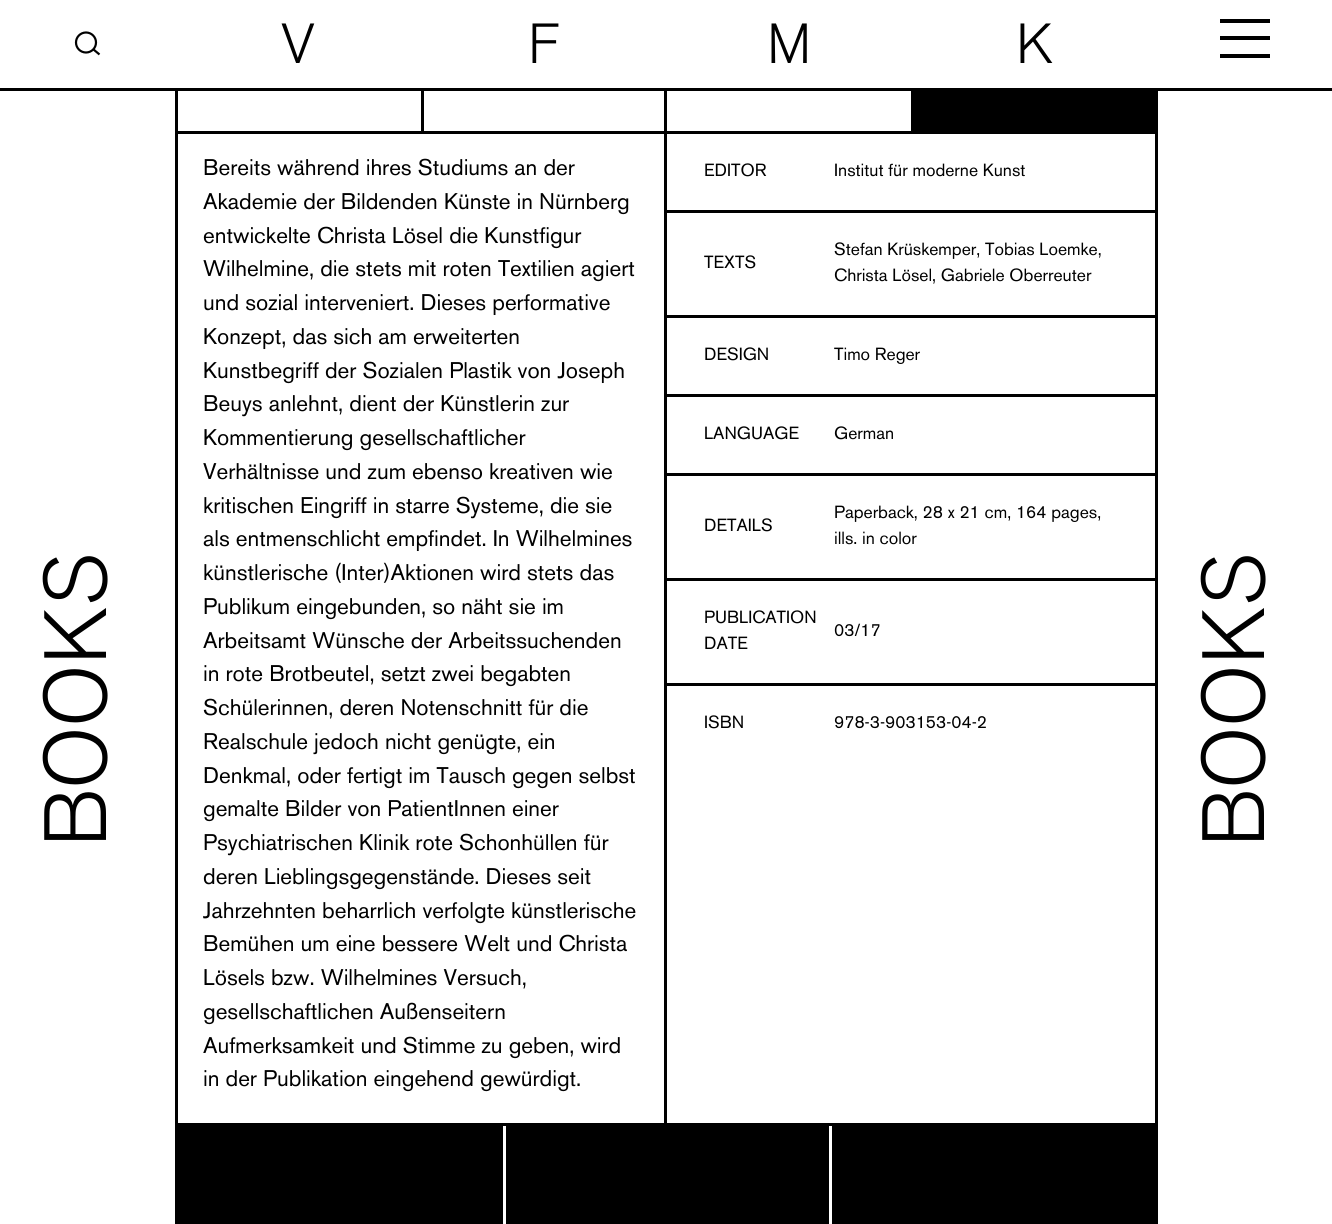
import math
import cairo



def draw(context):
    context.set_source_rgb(1, 1, 1)
    context.paint()
    context.set_source_rgb(0, 0, 0)
    context.rectangle(0, 88, 1332, 3)
    context.fill()
    context.arc(86, 42.5, 10, 0, 2 * math.pi)
    context.set_line_width(2.2)
    context.stroke()
    context.new_path()
    context.move_to(93.5, 49.5)
    context.line_to(99.5, 54.5)
    context.stroke()
    context.rectangle(1220, 19, 50, 4)
    context.fill()
    context.rectangle(1220, 36, 50, 4)
    context.fill()
    context.rectangle(1220, 54, 50, 4)
    context.fill()
    context.rectangle(1155, 91, 3, 1133)
    context.fill()
    context.rectangle(175, 91, 3, 1034)
    context.fill()
    context.rectangle(178, 131, 977, 3)
    context.fill()
    context.rectangle(664, 91, 3, 40)
    context.fill()
    context.rectangle(421, 91, 3, 40)
    context.fill()
    context.rectangle(911, 91, 244, 40)
    context.fill()
    context.rectangle(175, 1125, 980, 99)
    context.fill()
    context.set_source_rgb(1, 1, 1)
    context.rectangle(503, 1125, 3, 99)
    context.fill()
    context.rectangle(829, 1125, 3, 99)
    context.fill()
    context.set_source_rgb(0, 0, 0)
    context.rectangle(178, 1123, 977, 3)
    context.fill()
    context.rectangle(666, 210, 489, 3)
    context.fill()
    context.rectangle(666, 315, 489, 3)
    context.fill()
    context.rectangle(666, 394, 489, 3)
    context.fill()
    context.rectangle(666, 473, 489, 3)
    context.fill()
    context.rectangle(666, 578, 489, 3)
    context.fill()
    context.rectangle(666, 683, 489, 3)
    context.fill()
    context.rectangle(664, 134, 3, 989)
    context.fill()
    context.select_font_face("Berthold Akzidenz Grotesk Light")
    context.set_font_size(56)
    context.move_to(281, 63)
    context.show_text("V")
    context.move_to(528, 63)
    context.show_text("F")
    context.move_to(767, 63)
    context.show_text("M")
    context.move_to(1016, 63)
    context.show_text("K")
    context.set_font_size(87.5)
    context.save()
    context.translate(106, 847)
    context.rotate(-90 * math.pi / 180)
    context.move_to(0, 0)
    context.show_text("BOOKS")
    context.restore()
    context.select_font_face("Berthold Akzidenz Grotesk")
    context.set_font_size(22.5)
    context.move_to(203, 175)
    context.show_text("Bereits während ihres Studiums an der")
    context.move_to(203, 209)
    context.show_text("Akademie der Bildenden Künste in Nürnberg")
    context.move_to(203, 243)
    context.show_text("entwickelte Christa Lösel die Kunstfigur")
    context.move_to(203, 276)
    context.show_text("Wilhelmine, die stets mit roten Textilien agiert")
    context.move_to(203, 310)
    context.show_text("und sozial interveniert. Dieses performative")
    context.move_to(203, 344)
    context.show_text("Konzept, das sich am erweiterten")
    context.move_to(203, 378)
    context.show_text("Kunstbegriff der Sozialen Plastik von Joseph")
    context.move_to(203, 411)
    context.show_text("Beuys anlehnt, dient der Künstlerin zur")
    context.move_to(203, 445)
    context.show_text("Kommentierung gesellschaftlicher")
    context.move_to(203, 479)
    context.show_text("Verhältnisse und zum ebenso kreativen wie")
    context.move_to(203, 513)
    context.show_text("kritischen Eingriff in starre Systeme, die sie")
    context.move_to(203, 546)
    context.show_text("als entmenschlicht empfindet. In Wilhelmines")
    context.move_to(203, 580)
    context.show_text("künstlerische (Inter)Aktionen wird stets das")
    context.move_to(203, 614)
    context.show_text("Publikum eingebunden, so näht sie im")
    context.move_to(203, 648)
    context.show_text("Arbeitsamt Wünsche der Arbeitssuchenden")
    context.move_to(203, 681)
    context.show_text("in rote Brotbeutel, setzt zwei begabten")
    context.move_to(203, 715)
    context.show_text("Schülerinnen, deren Notenschnitt für die")
    context.move_to(203, 749)
    context.show_text("Realschule jedoch nicht genügte, ein")
    context.move_to(203, 783)
    context.show_text("Denkmal, oder fertigt im Tausch gegen selbst")
    context.move_to(203, 816)
    context.show_text("gemalte Bilder von PatientInnen einer")
    context.move_to(203, 850)
    context.show_text("Psychiatrischen Klinik rote Schonhüllen für")
    context.move_to(203, 884)
    context.show_text("deren Lieblingsgegenstände. Dieses seit")
    context.move_to(203, 918)
    context.show_text("Jahrzehnten beharrlich verfolgte künstlerische")
    context.move_to(203, 951)
    context.show_text("Bemühen um eine bessere Welt und Christa")
    context.move_to(203, 985)
    context.show_text("Lösels bzw. Wilhelmines Versuch,")
    context.move_to(203, 1019)
    context.show_text("gesellschaftlichen Außenseitern")
    context.move_to(203, 1053)
    context.show_text("Aufmerksamkeit und Stimme zu geben, wird")
    context.move_to(203, 1086)
    context.show_text("in der Publikation eingehend gewürdigt.")
    context.set_font_size(17.5)
    context.move_to(704, 176)
    context.show_text("EDITOR")
    context.move_to(834, 176)
    context.show_text("Institut für moderne Kunst")
    context.move_to(704, 268)
    context.show_text("TEXTS")
    context.move_to(834, 255)
    context.show_text("Stefan Krüskemper, Tobias Loemke,")
    context.move_to(834, 281)
    context.show_text("Christa Lösel, Gabriele Oberreuter")
    context.move_to(704, 360)
    context.show_text("DESIGN")
    context.move_to(834, 360)
    context.show_text("Timo Reger")
    context.move_to(704, 439)
    context.show_text("LANGUAGE")
    context.move_to(834, 439)
    context.show_text("German")
    context.move_to(704, 531)
    context.show_text("DETAILS")
    context.move_to(834, 518)
    context.show_text("Paperback, 28 x 21 cm, 164 pages,")
    context.move_to(834, 544)
    context.show_text("ills. in color")
    context.move_to(704, 623)
    context.show_text("PUBLICATION")
    context.move_to(704, 649)
    context.show_text("DATE")
    context.move_to(834, 636)
    context.show_text("03/17")
    context.move_to(704, 728)
    context.show_text("ISBN")
    context.move_to(834, 728)
    context.show_text("978-3-903153-04-2")
    context.select_font_face("Berthold Akzidenz Grotesk Light")
    context.set_font_size(87.5)
    context.save()
    context.translate(1264, 847)
    context.rotate(-90 * math.pi / 180)
    context.move_to(0, 0)
    context.show_text("BOOKS")
    context.restore()


surface = cairo.ImageSurface(cairo.Format.RGB24, 1332, 1224)
context = cairo.Context(surface)
options = cairo.FontOptions()
options.set_hint_metrics(cairo.HintMetrics.OFF)
options.set_hint_style(cairo.HintStyle.NONE)
context.set_font_options(options)
context.set_miter_limit(4)
draw(context)
surface.write_to_png("out.png")
